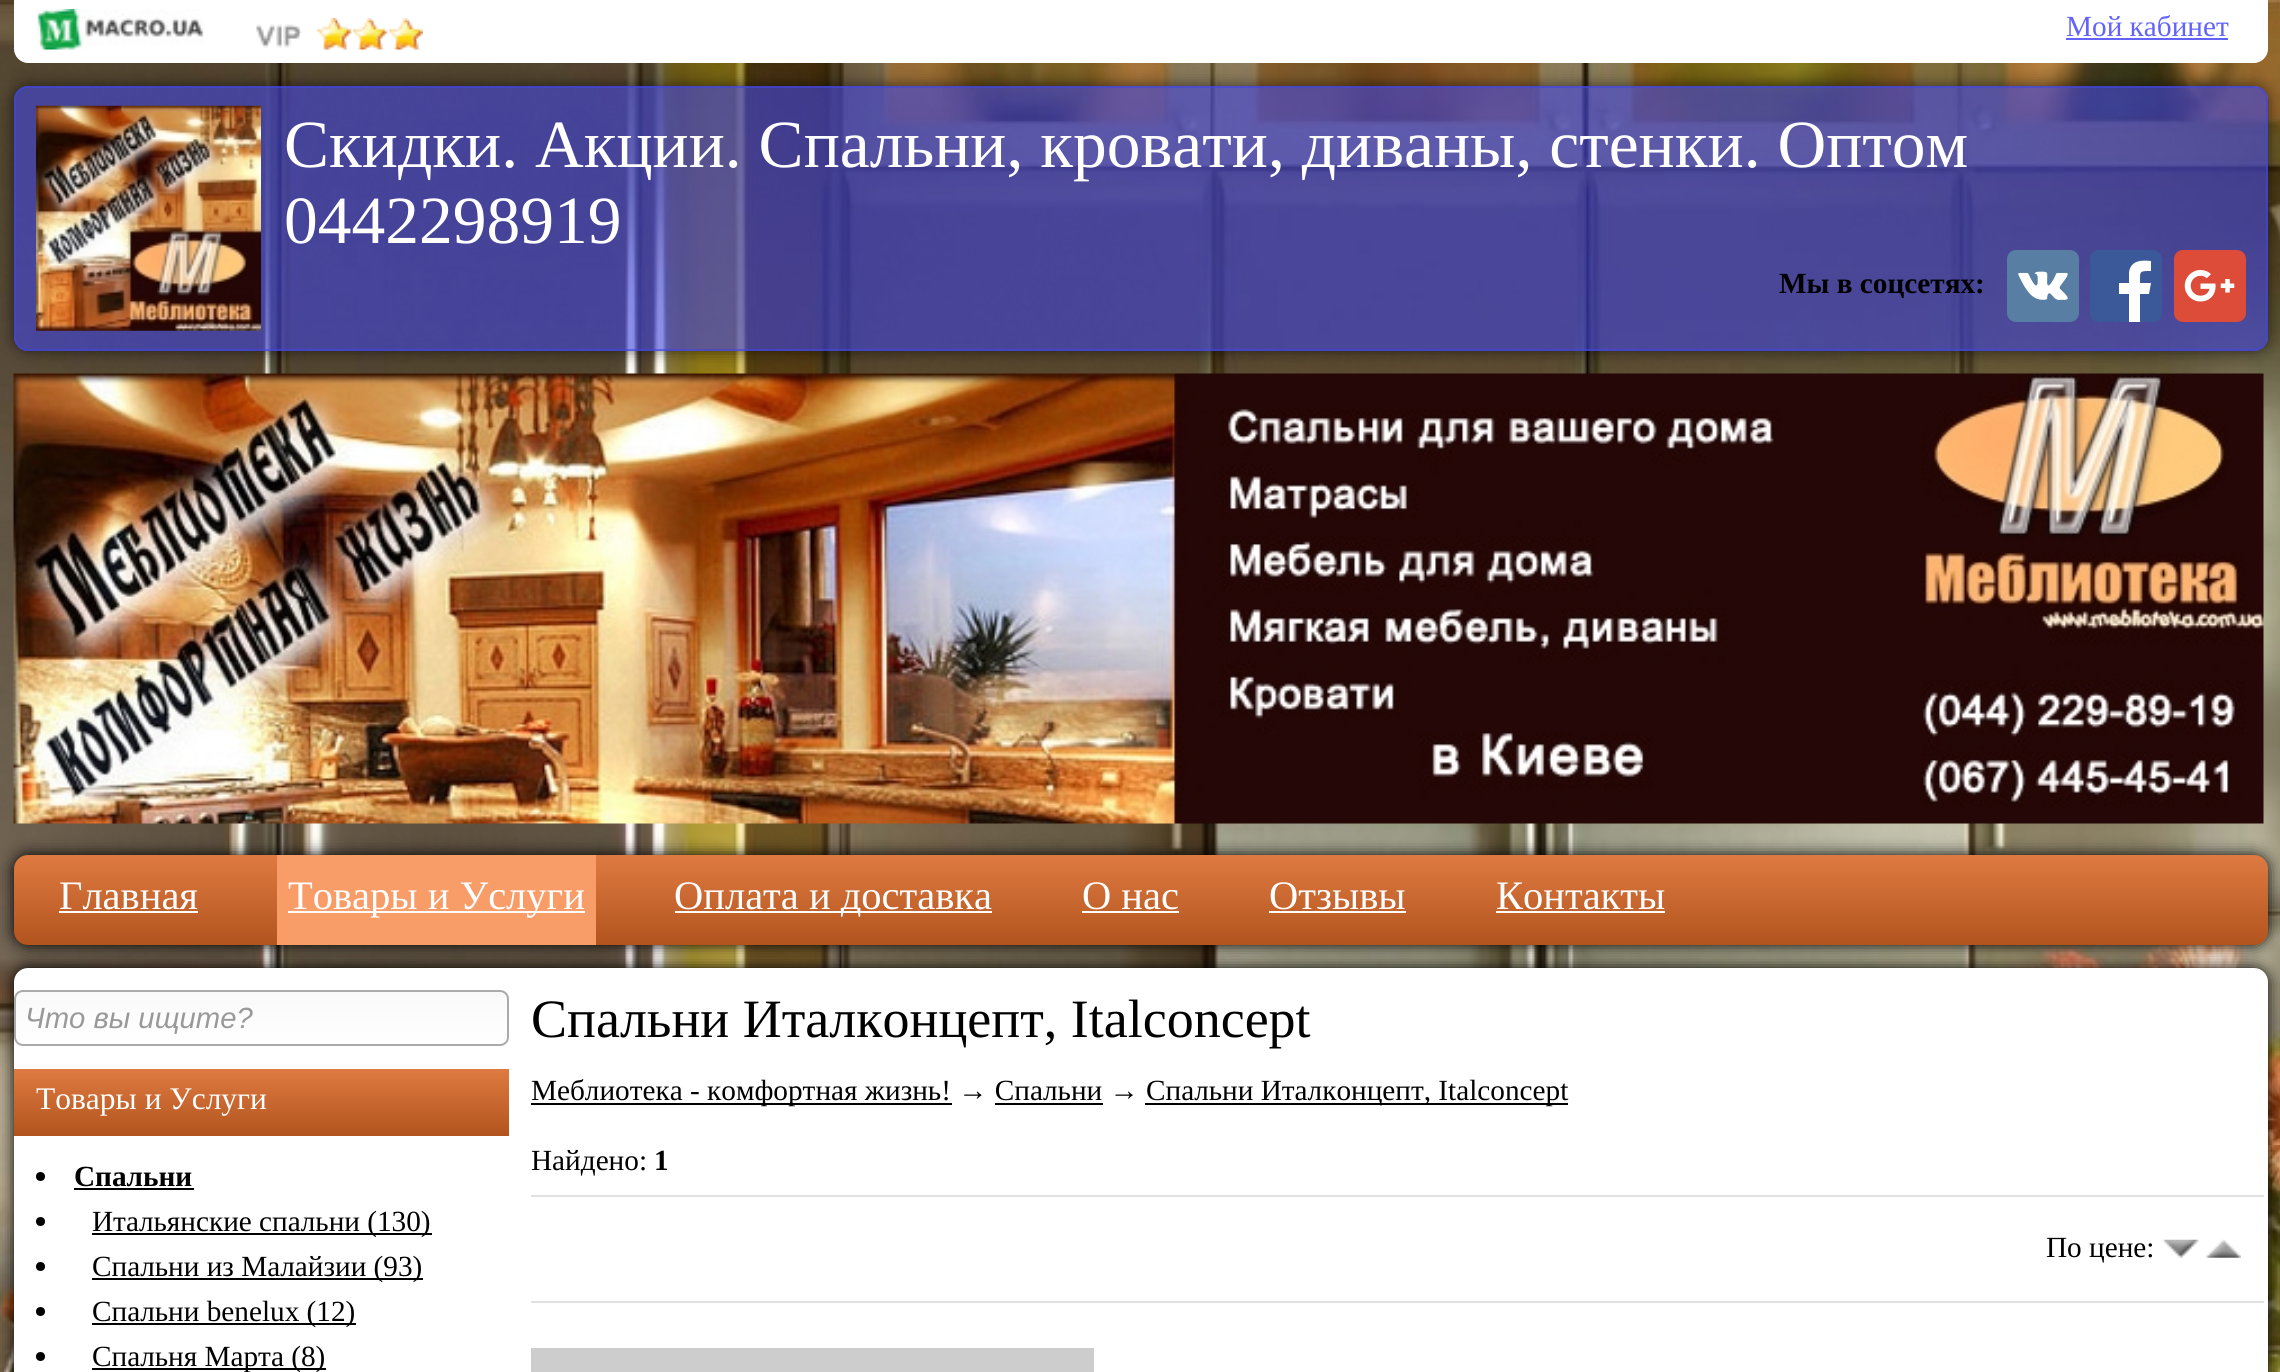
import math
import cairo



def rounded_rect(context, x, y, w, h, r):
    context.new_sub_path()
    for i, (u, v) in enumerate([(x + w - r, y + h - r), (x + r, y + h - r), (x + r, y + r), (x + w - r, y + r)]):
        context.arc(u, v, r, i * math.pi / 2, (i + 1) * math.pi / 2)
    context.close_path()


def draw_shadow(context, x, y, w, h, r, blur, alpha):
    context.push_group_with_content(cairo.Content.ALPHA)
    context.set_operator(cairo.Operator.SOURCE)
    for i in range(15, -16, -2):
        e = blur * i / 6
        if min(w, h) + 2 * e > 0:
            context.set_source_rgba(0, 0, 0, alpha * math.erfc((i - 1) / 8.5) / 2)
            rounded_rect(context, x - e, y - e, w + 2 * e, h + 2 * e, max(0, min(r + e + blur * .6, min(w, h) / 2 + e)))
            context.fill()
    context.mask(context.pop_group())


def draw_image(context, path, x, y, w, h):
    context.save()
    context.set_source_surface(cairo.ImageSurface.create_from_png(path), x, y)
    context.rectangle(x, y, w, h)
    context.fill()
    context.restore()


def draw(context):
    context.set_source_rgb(1, 1, 1)
    context.paint()
    draw_image(context, "images/1.png", 0, 0, 2280, 1372)
    context.set_source_rgb(1, 1, 1)
    context.new_path()
    context.move_to(14, 0)
    context.line_to(2268, 0)
    context.line_to(2268, 49)
    context.curve_to(2268, 56.5, 2261.5, 63, 2254, 63)
    context.line_to(28, 63)
    context.curve_to(20.5, 63, 14, 56.5, 14, 49)
    context.close_path()
    context.fill()
    draw_image(context, "images/2.png", 36, 9, 168, 41)
    draw_image(context, "images/3.png", 256, 18, 167, 32)
    context.set_source_rgb(99 / 255, 99 / 255, 251 / 255)
    context.rectangle(2066, 38, 162, 2)
    context.fill()
    draw_image(context, "images/7.png", 13, 373, 2251, 451)
    context.save()
    context.set_fill_rule(cairo.FillRule.EVEN_ODD)
    context.new_path()
    context.move_to(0, 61)
    context.line_to(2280, 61)
    context.line_to(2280, 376)
    context.line_to(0, 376)
    context.close_path()
    context.move_to(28, 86)
    context.line_to(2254, 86)
    context.curve_to(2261.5, 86, 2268, 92.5, 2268, 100)
    context.line_to(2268, 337)
    context.curve_to(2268, 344.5, 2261.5, 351, 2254, 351)
    context.line_to(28, 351)
    context.curve_to(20.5, 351, 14, 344.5, 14, 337)
    context.line_to(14, 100)
    context.curve_to(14, 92.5, 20.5, 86, 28, 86)
    context.close_path()
    context.clip()
    context.set_source_rgb(0, 0, 0)
    draw_shadow(context, 14, 86, 2254, 265, 14, 8, 0.6)
    context.restore()
    context.set_source_rgba(64 / 255, 69 / 255, 225 / 255, 0.6)
    rounded_rect(context, 14, 86, 2254, 265, 14)
    context.fill()
    rounded_rect(context, 15, 87, 2252, 263, 13)
    context.stroke()
    draw_image(context, "images/4.png", 36, 105, 225, 226)
    draw_image(context, "images/5.png", 2007, 250, 72, 72)
    context.set_source_rgb(59 / 255, 89 / 255, 152 / 255)
    rounded_rect(context, 2090, 250, 72, 72, 9)
    context.fill()
    context.set_source_rgb(1, 1, 1)
    context.new_path()
    context.move_to(2140, 322)
    context.line_to(2140, 294)
    context.line_to(2149, 294)
    context.line_to(2151, 283)
    context.line_to(2140, 283)
    context.curve_to(2140, 271, 2139, 271, 2151, 271)
    context.line_to(2151, 261)
    context.curve_to(2142, 260, 2131, 260, 2129, 272)
    context.line_to(2129, 283)
    context.line_to(2119, 283)
    context.line_to(2119, 294)
    context.line_to(2129, 294)
    context.line_to(2129, 322)
    context.close_path()
    context.fill()
    draw_image(context, "images/6.png", 2174, 250, 72, 72)
    context.set_source_rgb(0, 0, 0)
    draw_shadow(context, 14, 855, 2254, 90, 14, 8, 1)
    gradient = cairo.LinearGradient(1141, 855, 1141, 945)
    gradient.add_color_stop_rgba(0.01, 222 / 255, 122 / 255, 65 / 255, 1)
    gradient.add_color_stop_rgba(1, 178 / 255, 84 / 255, 30 / 255, 1)
    context.set_source(gradient)
    rounded_rect(context, 14, 855, 2254, 90, 14)
    context.fill()
    context.set_source_rgb(1, 1, 1)
    context.rectangle(59, 911, 139, 2)
    context.fill()
    context.set_source_rgb(0, 0, 0)
    draw_shadow(context, 14, 968, 2254, 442, 14, 8, 1)
    context.set_source_rgb(249 / 255, 157 / 255, 104 / 255)
    context.rectangle(277, 855, 319, 90)
    context.fill()
    context.set_source_rgb(1, 1, 1)
    context.rectangle(288, 911, 297, 2)
    context.fill()
    context.rectangle(675, 911, 317, 2)
    context.fill()
    context.rectangle(1082, 911, 97, 2)
    context.fill()
    context.rectangle(1269, 911, 137, 2)
    context.fill()
    context.rectangle(1496, 911, 169, 2)
    context.fill()
    rounded_rect(context, 14, 968, 2254, 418, 14)
    context.fill()
    context.save()
    rounded_rect(context, 14, 990, 495, 56, 9)
    context.clip()
    gradient = cairo.LinearGradient(16, 992, 16, 1044)
    gradient.add_color_stop_rgba(0, 249 / 255, 249 / 255, 249 / 255, 1)
    gradient.add_color_stop_rgba(1, 1, 1, 1, 1)
    context.set_source(gradient)
    context.rectangle(14, 992, 495, 52)
    context.fill()
    context.restore()
    rounded_rect(context, 15, 991, 493, 54, 8)
    context.set_source_rgb(170 / 255, 170 / 255, 170 / 255)
    context.stroke()
    gradient = cairo.LinearGradient(261, 1069, 261, 1136)
    gradient.add_color_stop_rgba(0.01, 222 / 255, 122 / 255, 65 / 255, 1)
    gradient.add_color_stop_rgba(1, 178 / 255, 84 / 255, 30 / 255, 1)
    context.set_source(gradient)
    context.rectangle(14, 1069, 495, 67)
    context.fill()
    context.set_source_rgb(0, 0, 0)
    context.arc(40.5, 1176.5, 4.5, 0, 2 * math.pi)
    context.fill()
    context.rectangle(74, 1188, 120, 2)
    context.fill()
    context.arc(40.5, 1221.5, 4.5, 0, 2 * math.pi)
    context.fill()
    context.rectangle(92, 1233, 340, 2)
    context.fill()
    context.arc(40.5, 1266.5, 4.5, 0, 2 * math.pi)
    context.fill()
    context.rectangle(92, 1278, 331, 2)
    context.fill()
    context.arc(40.5, 1311.5, 4.5, 0, 2 * math.pi)
    context.fill()
    context.rectangle(92, 1323, 264, 2)
    context.fill()
    context.arc(40.5, 1356.5, 4.5, 0, 2 * math.pi)
    context.fill()
    context.rectangle(92, 1368, 234, 2)
    context.fill()
    context.rectangle(531, 1103, 421, 2)
    context.fill()
    context.rectangle(1145, 1103, 423, 2)
    context.fill()
    context.rectangle(995, 1103, 108, 2)
    context.fill()
    context.set_source_rgb(225 / 255, 225 / 255, 225 / 255)
    context.rectangle(531, 1195, 1733, 2)
    context.fill()
    context.rectangle(531, 1301, 1733, 2)
    context.fill()
    draw_image(context, "images/8.png", 2162, 1239, 37, 19)
    draw_image(context, "images/9.png", 2205, 1239, 36, 19)
    context.set_source_rgb(205 / 255, 205 / 255, 205 / 255)
    context.rectangle(531, 1348, 563, 24)
    context.fill()
    context.select_font_face("Liberation Serif")
    context.set_font_size(29.25)
    context.set_source_rgb(99 / 255, 99 / 255, 251 / 255)
    context.move_to(2066, 36)
    context.show_text("Мой кабинет")
    context.set_font_size(67.5)
    context.set_source_rgb(1, 1, 1)
    context.move_to(284, 167)
    context.show_text("Скидки. Акции. Спальни, кровати, диваны, стенки. Оптом")
    context.move_to(284, 243)
    context.show_text("0442298919")
    context.select_font_face("Liberation Serif", cairo.FontSlant.NORMAL, cairo.FontWeight.BOLD)
    context.set_font_size(29.25)
    context.set_source_rgb(0, 0, 0)
    context.move_to(1779, 293)
    context.show_text("Мы в соцсетях:")
    context.select_font_face("Liberation Serif")
    context.set_font_size(40.5)
    context.set_source_rgb(1, 1, 1)
    context.move_to(59, 909)
    context.show_text("Главная")
    context.move_to(288, 909)
    context.show_text("Товары и Услуги")
    context.move_to(674, 909)
    context.show_text("Оплата и доставка")
    context.move_to(1082, 909)
    context.show_text("О нас")
    context.move_to(1269, 909)
    context.show_text("Отзывы")
    context.move_to(1496, 909)
    context.show_text("Контакты")
    context.select_font_face("Liberation Sans", cairo.FontSlant.ITALIC)
    context.set_font_size(29.25)
    context.set_source_rgb(153 / 255, 153 / 255, 153 / 255)
    context.move_to(25, 1028)
    context.show_text("Что вы ищите?")
    context.select_font_face("Liberation Serif")
    context.set_font_size(31.5)
    context.set_source_rgb(1, 1, 1)
    context.move_to(36, 1109)
    context.show_text("Товары и Услуги")
    context.select_font_face("Liberation Serif", cairo.FontSlant.NORMAL, cairo.FontWeight.BOLD)
    context.set_font_size(29.25)
    context.set_source_rgb(0, 0, 0)
    context.move_to(74, 1186)
    context.show_text("Спальни")
    context.select_font_face("Liberation Serif")
    context.move_to(92, 1231)
    context.show_text("Итальянские спальни (130)")
    context.move_to(92, 1276)
    context.show_text("Спальни из Малайзии (93)")
    context.move_to(92, 1321)
    context.show_text("Спальни benelux (12)")
    context.move_to(92, 1366)
    context.show_text("Спальня Марта (8)")
    context.set_font_size(54)
    context.move_to(531, 1037)
    context.show_text("Спальни Италконцепт, Italconcept")
    context.set_font_size(29.25)
    context.move_to(531, 1100)
    context.show_text("Меблиотека - комфортная жизнь! → Спальни →")
    context.move_to(1146, 1100)
    context.show_text("Спальни Италконцепт, Italconcept")
    context.move_to(531, 1170)
    context.show_text("Найдено:")
    context.select_font_face("Liberation Serif", cairo.FontSlant.NORMAL, cairo.FontWeight.BOLD)
    context.move_to(654, 1170)
    context.show_text("1")
    context.select_font_face("Liberation Serif")
    context.move_to(2046, 1257)
    context.show_text("По цене:")


surface = cairo.ImageSurface(cairo.Format.RGB24, 2280, 1372)
context = cairo.Context(surface)
options = cairo.FontOptions()
options.set_hint_metrics(cairo.HintMetrics.OFF)
options.set_hint_style(cairo.HintStyle.NONE)
context.set_font_options(options)
context.set_miter_limit(4)
draw(context)
surface.write_to_png("out.png")
